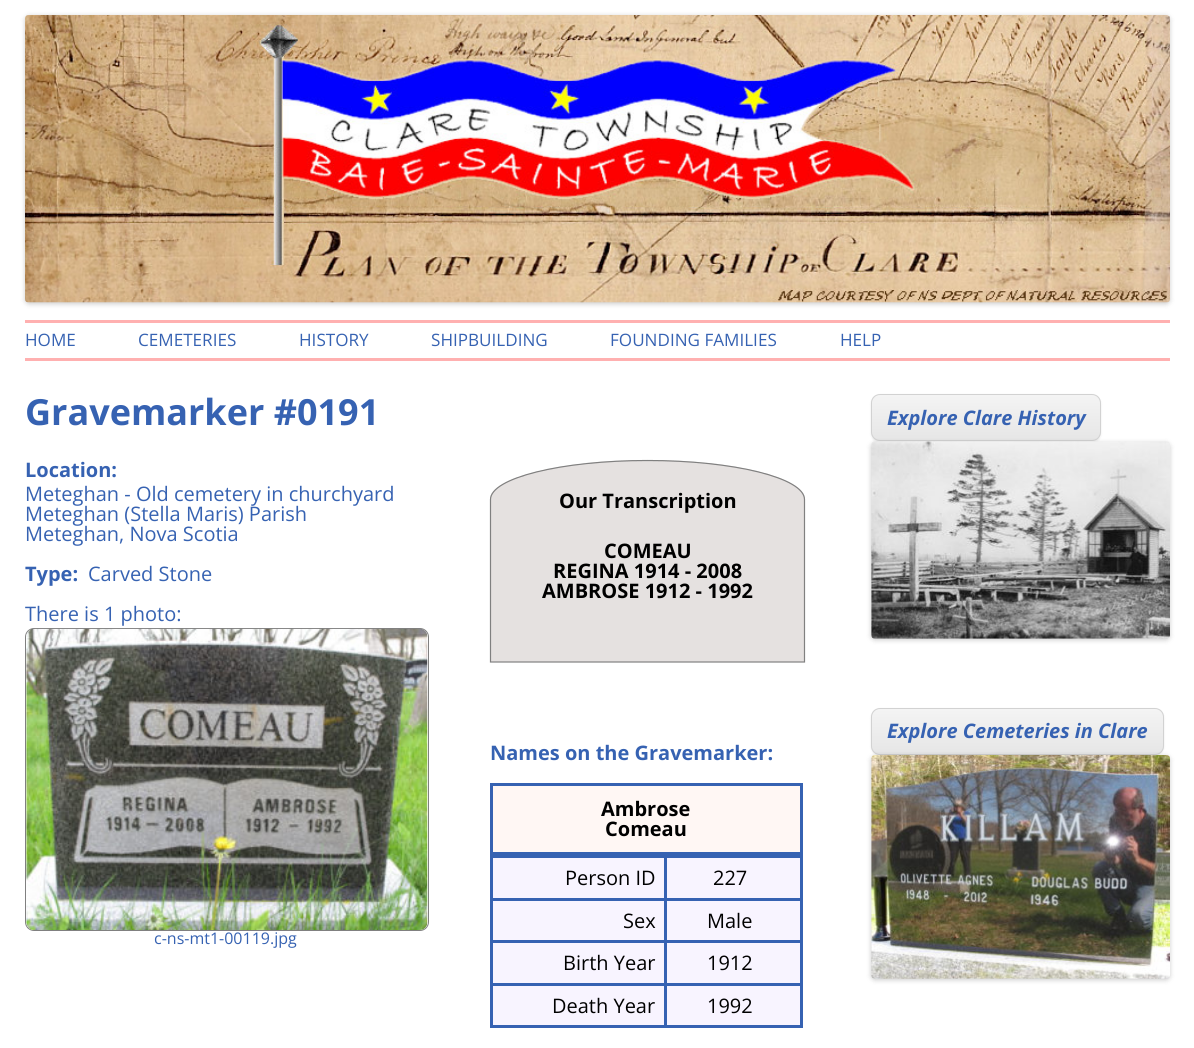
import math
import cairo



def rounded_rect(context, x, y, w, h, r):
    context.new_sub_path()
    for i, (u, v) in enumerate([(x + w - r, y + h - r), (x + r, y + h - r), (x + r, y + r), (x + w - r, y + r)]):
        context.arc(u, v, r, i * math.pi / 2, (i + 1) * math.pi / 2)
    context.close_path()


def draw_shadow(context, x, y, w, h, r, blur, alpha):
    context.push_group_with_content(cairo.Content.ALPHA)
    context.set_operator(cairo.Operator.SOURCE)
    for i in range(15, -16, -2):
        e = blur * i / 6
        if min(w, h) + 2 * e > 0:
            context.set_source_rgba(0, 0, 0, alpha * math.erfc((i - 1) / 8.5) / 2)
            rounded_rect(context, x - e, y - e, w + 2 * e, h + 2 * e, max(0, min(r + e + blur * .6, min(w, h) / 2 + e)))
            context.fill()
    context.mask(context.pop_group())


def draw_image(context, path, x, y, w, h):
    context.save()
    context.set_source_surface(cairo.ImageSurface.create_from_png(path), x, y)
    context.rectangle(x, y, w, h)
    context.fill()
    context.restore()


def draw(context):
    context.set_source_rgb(1, 1, 1)
    context.paint()
    context.set_source_rgb(0, 0, 0)
    draw_shadow(context, 25, 16, 1145, 288, 4, 2.5, 0.2)
    draw_image(context, "images/1.png", 25, 15, 1145, 288)
    context.set_source_rgb(1, 176 / 255, 176 / 255)
    context.rectangle(25, 320, 1145, 3)
    context.fill()
    context.rectangle(25, 358, 1145, 3)
    context.fill()
    rounded_rect(context, 25.5, 628.5, 403, 302, 8.5)
    context.set_source_rgb(128 / 255, 128 / 255, 128 / 255)
    context.set_line_width(1)
    context.stroke()
    draw_image(context, "images/2.png", 26, 628, 402, 302)
    context.set_source_rgb(229 / 255, 225 / 255, 224 / 255)
    context.new_path()
    context.move_to(648, 460)
    context.curve_to(734, 460, 805, 478, 805, 499)
    context.line_to(805, 662)
    context.line_to(490, 662)
    context.line_to(490, 499)
    context.curve_to(490, 478, 561, 460, 648, 460)
    context.close_path()
    context.fill()
    context.new_path()
    context.move_to(647.5, 460.5)
    context.curve_to(734, 460.5, 804.5, 478, 804.5, 499.5)
    context.line_to(804.5, 662)
    context.line_to(490.5, 662)
    context.line_to(490.5, 499.5)
    context.curve_to(490.5, 478, 561, 460.5, 647.5, 460.5)
    context.close_path()
    context.set_source_rgb(128 / 255, 128 / 255, 128 / 255)
    context.set_line_width(1.2)
    context.stroke()
    context.set_source_rgb(54 / 255, 98 / 255, 178 / 255)
    context.rectangle(800, 855, 3, 173)
    context.fill()
    context.rectangle(490, 1025, 313, 3)
    context.fill()
    context.rectangle(490, 855, 3, 173)
    context.fill()
    context.set_source_rgb(1, 247 / 255, 244 / 255)
    context.rectangle(491.5, 784.5, 310, 69)
    context.fill_preserve()
    context.set_source_rgb(54 / 255, 98 / 255, 178 / 255)
    context.set_line_width(3)
    context.stroke()
    context.set_source_rgb(248 / 255, 244 / 255, 1)
    context.rectangle(493, 858, 171, 40)
    context.fill()
    context.set_source_rgb(54 / 255, 98 / 255, 178 / 255)
    context.rectangle(664, 855, 139, 3)
    context.fill()
    context.rectangle(664, 898, 139, 3)
    context.fill()
    context.rectangle(664, 940, 139, 3)
    context.fill()
    context.rectangle(664, 983, 139, 3)
    context.fill()
    context.rectangle(664, 983, 3, 45)
    context.fill()
    context.rectangle(490, 983, 176, 3)
    context.fill()
    context.rectangle(664, 940, 3, 45)
    context.fill()
    context.rectangle(490, 940, 176, 3)
    context.fill()
    context.rectangle(664, 898, 3, 45)
    context.fill()
    context.rectangle(490, 898, 176, 3)
    context.fill()
    context.rectangle(664, 855, 3, 45)
    context.fill()
    context.rectangle(490, 855, 176, 3)
    context.fill()
    context.set_source_rgb(248 / 255, 244 / 255, 1)
    context.rectangle(667, 858, 133, 40)
    context.fill()
    context.rectangle(493, 901, 171, 39)
    context.fill()
    context.rectangle(667, 901, 133, 39)
    context.fill()
    context.rectangle(493, 943, 171, 40)
    context.fill()
    context.rectangle(667, 943, 133, 40)
    context.fill()
    context.rectangle(493, 986, 171, 39)
    context.fill()
    context.rectangle(667, 986, 133, 39)
    context.fill()
    context.set_source_rgb(64 / 255, 64 / 255, 64 / 255)
    draw_shadow(context, 871, 395, 230, 48, 9, 1, 0.1)
    context.save()
    rounded_rect(context, 871, 394, 230, 47, 9)
    context.clip()
    gradient = cairo.LinearGradient(986, 395, 986, 440)
    gradient.add_color_stop_rgba(0, 244 / 255, 244 / 255, 244 / 255, 1)
    gradient.add_color_stop_rgba(1, 230 / 255, 230 / 255, 230 / 255, 1)
    context.set_source(gradient)
    context.rectangle(871, 395, 230, 45)
    context.fill()
    context.restore()
    rounded_rect(context, 871.5, 394.5, 229, 46, 8.5)
    context.set_source_rgb(210 / 255, 210 / 255, 210 / 255)
    context.set_line_width(1)
    context.stroke()
    context.set_source_rgb(0, 0, 0)
    draw_shadow(context, 871, 443, 299, 197, 4, 2.5, 0.2)
    draw_image(context, "images/3.png", 871, 441, 299, 198)
    context.set_source_rgb(64 / 255, 64 / 255, 64 / 255)
    draw_shadow(context, 871, 709, 293, 47, 9, 1, 0.1)
    context.save()
    rounded_rect(context, 871, 708, 293, 47, 9)
    context.clip()
    gradient = cairo.LinearGradient(1018, 709, 1018, 754)
    gradient.add_color_stop_rgba(0, 244 / 255, 244 / 255, 244 / 255, 1)
    gradient.add_color_stop_rgba(1, 230 / 255, 230 / 255, 230 / 255, 1)
    context.set_source(gradient)
    context.rectangle(871, 709, 293, 45)
    context.fill()
    context.restore()
    rounded_rect(context, 871.5, 708.5, 292, 46, 8.5)
    context.set_source_rgb(210 / 255, 210 / 255, 210 / 255)
    context.stroke()
    context.set_source_rgb(0, 0, 0)
    draw_shadow(context, 871, 756, 299, 224, 4, 2.5, 0.2)
    draw_image(context, "images/4.png", 871, 755, 299, 224)
    context.select_font_face("Open Sans")
    context.set_font_size(17.1)
    context.set_source_rgb(54 / 255, 98 / 255, 178 / 255)
    context.move_to(25, 346)
    context.show_text("HOME")
    context.move_to(138, 346)
    context.show_text("CEMETERIES")
    context.move_to(299, 346)
    context.show_text("HISTORY")
    context.move_to(431, 346)
    context.show_text("SHIPBUILDING")
    context.move_to(610, 346)
    context.show_text("FOUNDING FAMILIES")
    context.move_to(840, 346)
    context.show_text("HELP")
    context.select_font_face("Open Sans", cairo.FontSlant.NORMAL, cairo.FontWeight.BOLD)
    context.set_font_size(36)
    context.move_to(25, 425)
    context.show_text("Gravemarker #0191")
    context.set_font_size(20)
    context.move_to(25, 477)
    context.show_text("Location:")
    context.select_font_face("Open Sans")
    context.move_to(25, 501)
    context.show_text("Meteghan - Old cemetery in churchyard")
    context.move_to(25, 521)
    context.show_text("Meteghan (Stella Maris) Parish")
    context.move_to(25, 541)
    context.show_text("Meteghan, Nova Scotia")
    context.select_font_face("Open Sans", cairo.FontSlant.NORMAL, cairo.FontWeight.BOLD)
    context.move_to(25, 581)
    context.show_text("Type:")
    context.select_font_face("Open Sans")
    context.move_to(88, 581)
    context.show_text("Carved Stone")
    context.move_to(25, 621)
    context.show_text("There is 1 photo:")
    context.set_font_size(16)
    context.move_to(154, 944)
    context.show_text("c-ns-mt1-00119.jpg")
    context.select_font_face("Open Sans", cairo.FontSlant.NORMAL, cairo.FontWeight.BOLD)
    context.set_font_size(20)
    context.set_source_rgb(0, 0, 0)
    context.move_to(559, 508)
    context.show_text("Our Transcription")
    context.move_to(604, 558)
    context.show_text("COMEAU")
    context.move_to(553, 578)
    context.show_text("REGINA 1914 - 2008")
    context.move_to(542, 598)
    context.show_text("AMBROSE 1912 - 1992")
    context.set_source_rgb(54 / 255, 98 / 255, 178 / 255)
    context.move_to(490, 760)
    context.show_text("Names on the Gravemarker:")
    context.set_source_rgb(0, 0, 0)
    context.move_to(601, 816)
    context.show_text("Ambrose")
    context.move_to(605, 836)
    context.show_text("Comeau")
    context.select_font_face("Open Sans")
    context.move_to(565, 885)
    context.show_text("Person ID")
    context.move_to(713, 885)
    context.show_text("227")
    context.move_to(623, 928)
    context.show_text("Sex")
    context.move_to(707, 928)
    context.show_text("Male")
    context.move_to(563, 970)
    context.show_text("Birth Year")
    context.move_to(707, 970)
    context.show_text("1912")
    context.move_to(552, 1013)
    context.show_text("Death Year")
    context.move_to(707, 1013)
    context.show_text("1992")
    context.select_font_face("Open Sans", cairo.FontSlant.ITALIC, cairo.FontWeight.BOLD)
    context.set_source_rgb(54 / 255, 98 / 255, 178 / 255)
    context.move_to(887, 425)
    context.show_text("Explore Clare History")
    context.move_to(887, 738)
    context.show_text("Explore Cemeteries in Clare")


surface = cairo.ImageSurface(cairo.Format.RGB24, 1194, 1048)
context = cairo.Context(surface)
options = cairo.FontOptions()
options.set_hint_metrics(cairo.HintMetrics.OFF)
options.set_hint_style(cairo.HintStyle.NONE)
context.set_font_options(options)
context.set_miter_limit(4)
draw(context)
surface.write_to_png("out.png")
